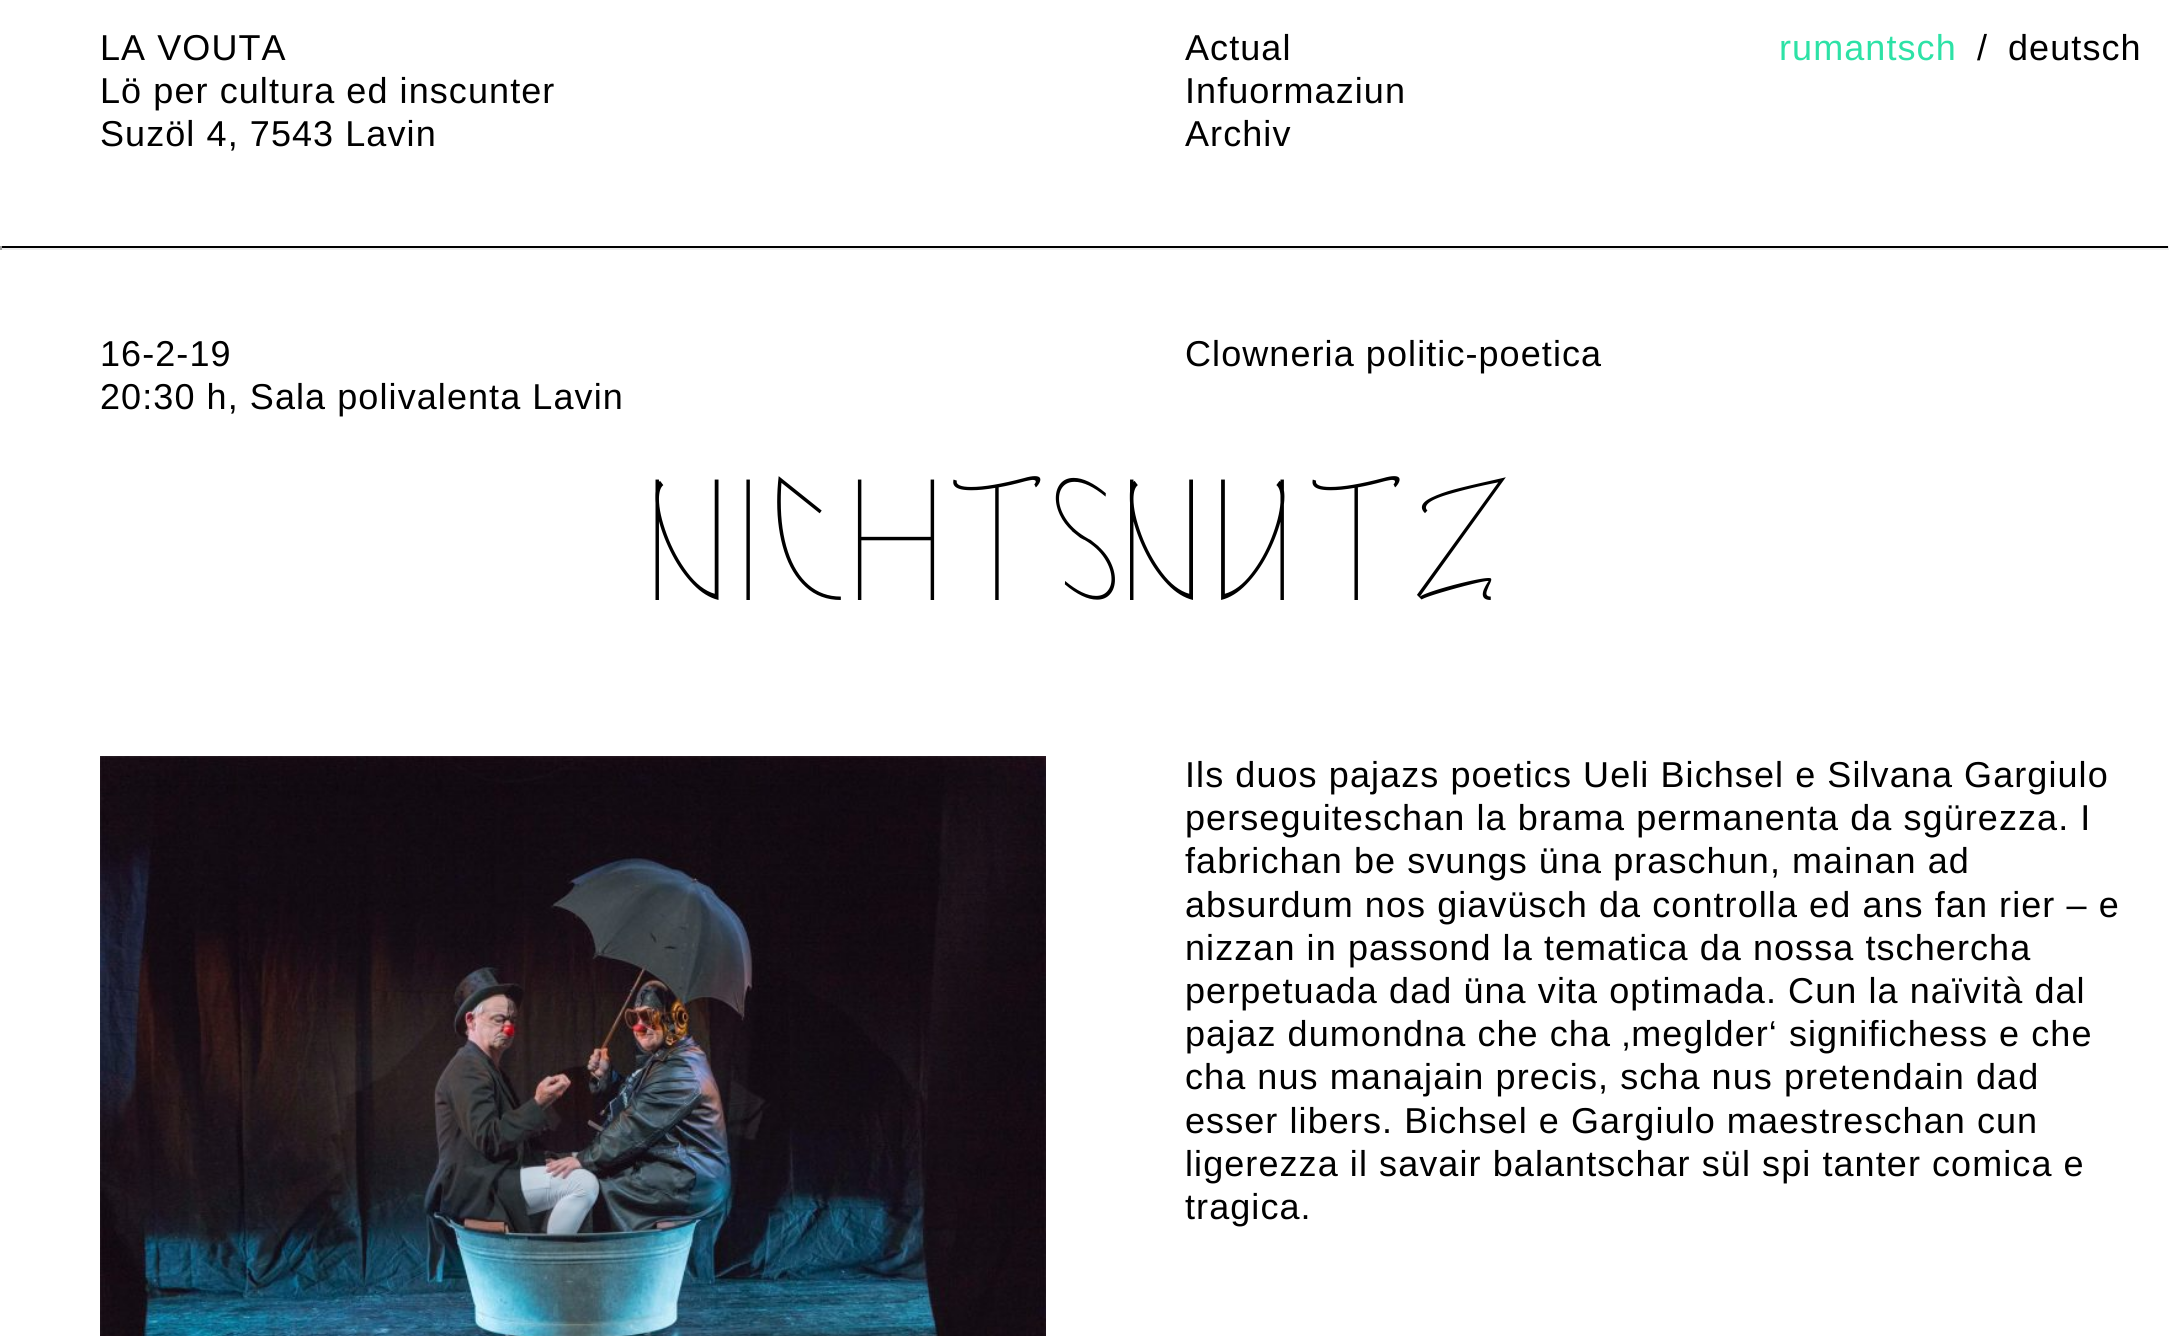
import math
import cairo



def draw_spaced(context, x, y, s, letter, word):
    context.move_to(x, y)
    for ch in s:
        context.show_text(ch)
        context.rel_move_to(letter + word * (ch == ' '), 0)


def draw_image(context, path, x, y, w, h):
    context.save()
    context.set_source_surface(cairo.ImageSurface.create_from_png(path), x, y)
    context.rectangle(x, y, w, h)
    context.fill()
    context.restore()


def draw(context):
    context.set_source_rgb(1, 1, 1)
    context.paint()
    context.set_source_rgb(0, 0, 0)
    context.rectangle(0, 246, 2169, 2)
    context.fill()
    context.set_source_rgb(238 / 255, 238 / 255, 238 / 255)
    context.rectangle(2168, 246, 1, 4)
    context.fill()
    context.rectangle(0, 248, 2169, 2)
    context.fill()
    context.set_source_rgb(159 / 255, 159 / 255, 159 / 255)
    context.rectangle(0, 246, 2, 4)
    context.fill()
    draw_image(context, "images/1.png", 100, 756, 946, 580)
    context.select_font_face("Liberation Sans")
    context.set_font_size(36)
    context.set_source_rgb(0, 0, 0)
    draw_spaced(context, 100, 60, "LA VOUTA", 1.08, 0)
    draw_spaced(context, 100, 103, "Lö per cultura ed inscunter", 1.08, 0)
    draw_spaced(context, 100, 146, "Suzöl 4, 7543 Lavin", 1.08, 0)
    draw_spaced(context, 1185, 60, "Actual", 1.08, 0)
    draw_spaced(context, 1185, 103, "Infuormaziun", 1.08, 0)
    draw_spaced(context, 1185, 146, "Archiv", 1.08, 0)
    context.set_source_rgb(45 / 255, 226 / 255, 166 / 255)
    draw_spaced(context, 1779, 60, "rumantsch", 1.08, 0)
    context.set_source_rgb(0, 0, 0)
    draw_spaced(context, 1977, 60, "/", 1.08, 0)
    draw_spaced(context, 2008, 60, "deutsch", 1.08, 0)
    draw_spaced(context, 100, 366, "16-2-19", 1.08, 0)
    draw_spaced(context, 100, 409, "20:30 h, Sala polivalenta Lavin", 1.08, 0)
    draw_spaced(context, 1185, 366, "Clowneria politic-poetica", 1.08, 0)
    context.select_font_face("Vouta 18 ExtraLight")
    context.set_font_size(172)
    draw_spaced(context, 654, 600, "NICHTSNUTZ", 8.5, 0)
    context.select_font_face("Liberation Sans")
    context.set_font_size(36)
    draw_spaced(context, 1185, 787, "Ils duos pajazs poetics Ueli Bichsel e Silvana Gargiulo", 1.08, 0)
    draw_spaced(context, 1185, 830, "perseguiteschan la brama permanenta da sgürezza. I", 1.08, 0)
    draw_spaced(context, 1185, 873, "fabrichan be svungs üna praschun, mainan ad", 1.08, 0)
    draw_spaced(context, 1185, 917, "absurdum nos giavüsch da controlla ed ans fan rier – e", 1.08, 0)
    draw_spaced(context, 1185, 960, "nizzan in passond la tematica da nossa tschercha", 1.08, 0)
    draw_spaced(context, 1185, 1003, "perpetuada dad üna vita optimada. Cun la naïvità dal", 1.08, 0)
    draw_spaced(context, 1185, 1046, "pajaz dumondna che cha ‚meglder‘ significhess e che", 1.08, 0)
    draw_spaced(context, 1185, 1089, "cha nus manajain precis, scha nus pretendain dad", 1.08, 0)
    draw_spaced(context, 1185, 1133, "esser libers. Bichsel e Gargiulo maestreschan cun", 1.08, 0)
    draw_spaced(context, 1185, 1176, "ligerezza il savair balantschar sül spi tanter comica e", 1.08, 0)
    draw_spaced(context, 1185, 1219, "tragica.", 1.08, 0)


surface = cairo.ImageSurface(cairo.Format.RGB24, 2169, 1336)
context = cairo.Context(surface)
options = cairo.FontOptions()
options.set_hint_metrics(cairo.HintMetrics.OFF)
options.set_hint_style(cairo.HintStyle.NONE)
context.set_font_options(options)
context.set_miter_limit(4)
draw(context)
surface.write_to_png("out.png")
